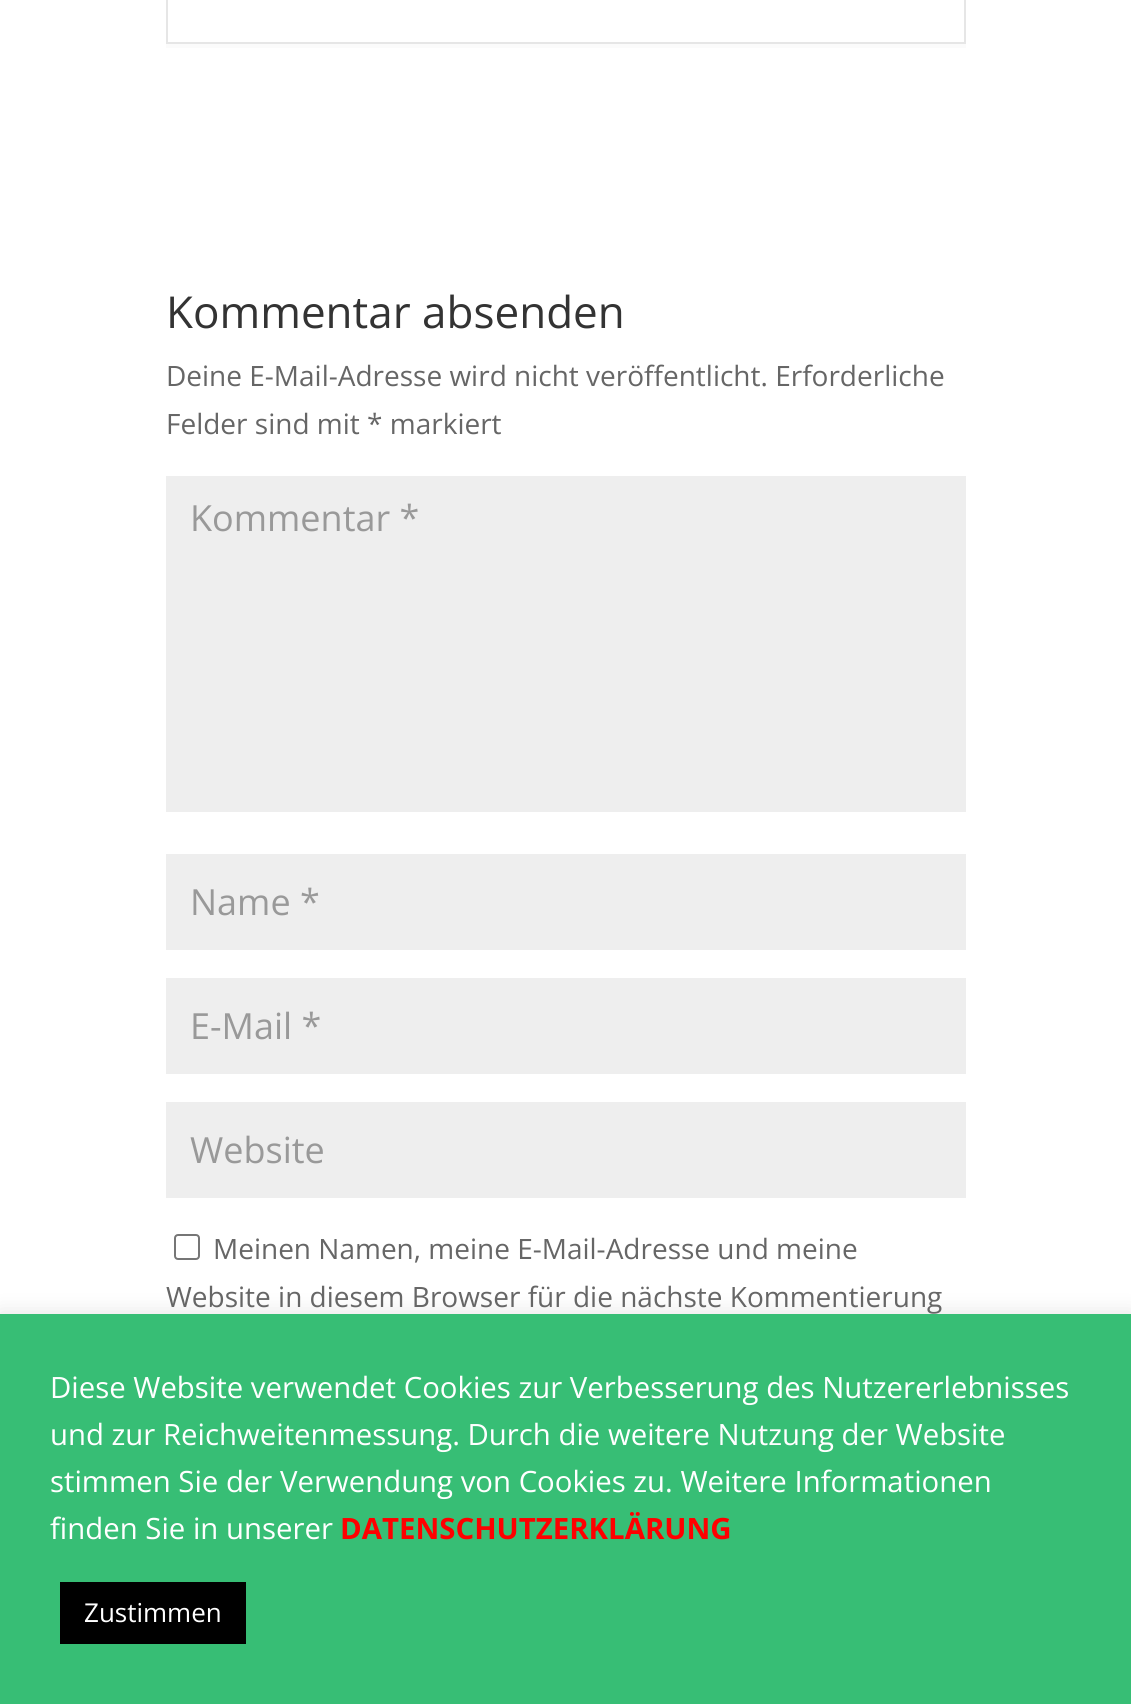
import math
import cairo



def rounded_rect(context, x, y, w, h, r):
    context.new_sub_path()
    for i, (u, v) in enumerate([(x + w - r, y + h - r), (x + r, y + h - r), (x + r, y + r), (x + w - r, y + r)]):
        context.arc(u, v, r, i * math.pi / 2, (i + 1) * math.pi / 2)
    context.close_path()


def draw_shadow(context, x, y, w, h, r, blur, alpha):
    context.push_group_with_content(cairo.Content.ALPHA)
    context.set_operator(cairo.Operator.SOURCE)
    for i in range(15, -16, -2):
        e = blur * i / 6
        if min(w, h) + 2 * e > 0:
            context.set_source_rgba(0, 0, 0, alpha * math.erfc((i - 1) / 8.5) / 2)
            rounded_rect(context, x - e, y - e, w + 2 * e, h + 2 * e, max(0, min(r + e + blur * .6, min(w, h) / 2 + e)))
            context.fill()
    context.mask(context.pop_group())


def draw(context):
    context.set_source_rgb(1, 1, 1)
    context.paint()
    context.set_source_rgb(251 / 255, 251 / 255, 251 / 255)
    context.rectangle(166, 44, 800, 4)
    context.fill()
    context.rectangle(167, -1, 798, 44)
    context.set_source_rgb(230 / 255, 230 / 255, 230 / 255)
    context.stroke()
    context.set_source_rgb(238 / 255, 238 / 255, 238 / 255)
    context.rectangle(166, 476, 800, 336)
    context.fill()
    context.rectangle(166, 854, 800, 96)
    context.fill()
    context.rectangle(166, 978, 800, 96)
    context.fill()
    context.rectangle(166, 1102, 800, 96)
    context.fill()
    rounded_rect(context, 175, 1235, 24, 24, 3)
    context.set_source_rgb(118 / 255, 118 / 255, 118 / 255)
    context.stroke()
    context.set_source_rgb(172 / 255, 171 / 255, 171 / 255)
    draw_shadow(context, 0, 1312, 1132, 390, 0, 10, 0.3)
    context.set_source_rgb(55 / 255, 190 / 255, 117 / 255)
    context.rectangle(0, 1314, 1131, 390)
    context.fill()
    context.set_source_rgb(0, 0, 0)
    context.rectangle(60, 1582, 186, 62)
    context.fill()
    context.select_font_face("Open Sans")
    context.set_font_size(44)
    context.set_source_rgb(51 / 255, 51 / 255, 51 / 255)
    context.move_to(166, 328)
    context.show_text("Kommentar absenden")
    context.set_font_size(28)
    context.set_source_rgb(102 / 255, 102 / 255, 102 / 255)
    context.move_to(166, 386)
    context.show_text("Deine E-Mail-Adresse wird nicht veröffentlicht. Erforderliche")
    context.move_to(166, 434)
    context.show_text("Felder sind mit * markiert")
    context.set_font_size(36)
    context.set_source_rgb(153 / 255, 153 / 255, 153 / 255)
    context.move_to(190, 531)
    context.show_text("Kommentar *")
    context.move_to(190, 915)
    context.show_text("Name *")
    context.move_to(190, 1039)
    context.show_text("E-Mail *")
    context.move_to(190, 1163)
    context.show_text("Website")
    context.set_font_size(28)
    context.set_source_rgb(102 / 255, 102 / 255, 102 / 255)
    context.move_to(213, 1259)
    context.show_text("Meinen Namen, meine E-Mail-Adresse und meine")
    context.move_to(166, 1307)
    context.show_text("Website in diesem Browser für die nächste Kommentierung")
    context.set_font_size(29.35)
    context.set_source_rgb(1, 1, 1)
    context.move_to(50, 1398)
    context.show_text("Diese Website verwendet Cookies zur Verbesserung des Nutzererlebnisses")
    context.move_to(50, 1445)
    context.show_text("und zur Reichweitenmessung. Durch die weitere Nutzung der Website")
    context.move_to(50, 1492)
    context.show_text("stimmen Sie der Verwendung von Cookies zu. Weitere Informationen")
    context.move_to(50, 1539)
    context.show_text("finden Sie in unserer")
    context.select_font_face("Open Sans", cairo.FontSlant.NORMAL, cairo.FontWeight.BOLD)
    context.set_source_rgb(1, 0, 0)
    context.move_to(340, 1539)
    context.show_text("DATENSCHUTZERKLÄRUNG")
    context.select_font_face("Open Sans")
    context.set_font_size(26)
    context.set_source_rgb(1, 1, 1)
    context.move_to(84, 1622)
    context.show_text("Zustimmen")


surface = cairo.ImageSurface(cairo.Format.RGB24, 1131, 1704)
context = cairo.Context(surface)
options = cairo.FontOptions()
options.set_hint_metrics(cairo.HintMetrics.OFF)
options.set_hint_style(cairo.HintStyle.NONE)
context.set_font_options(options)
context.set_miter_limit(4)
draw(context)
surface.write_to_png("out.png")
